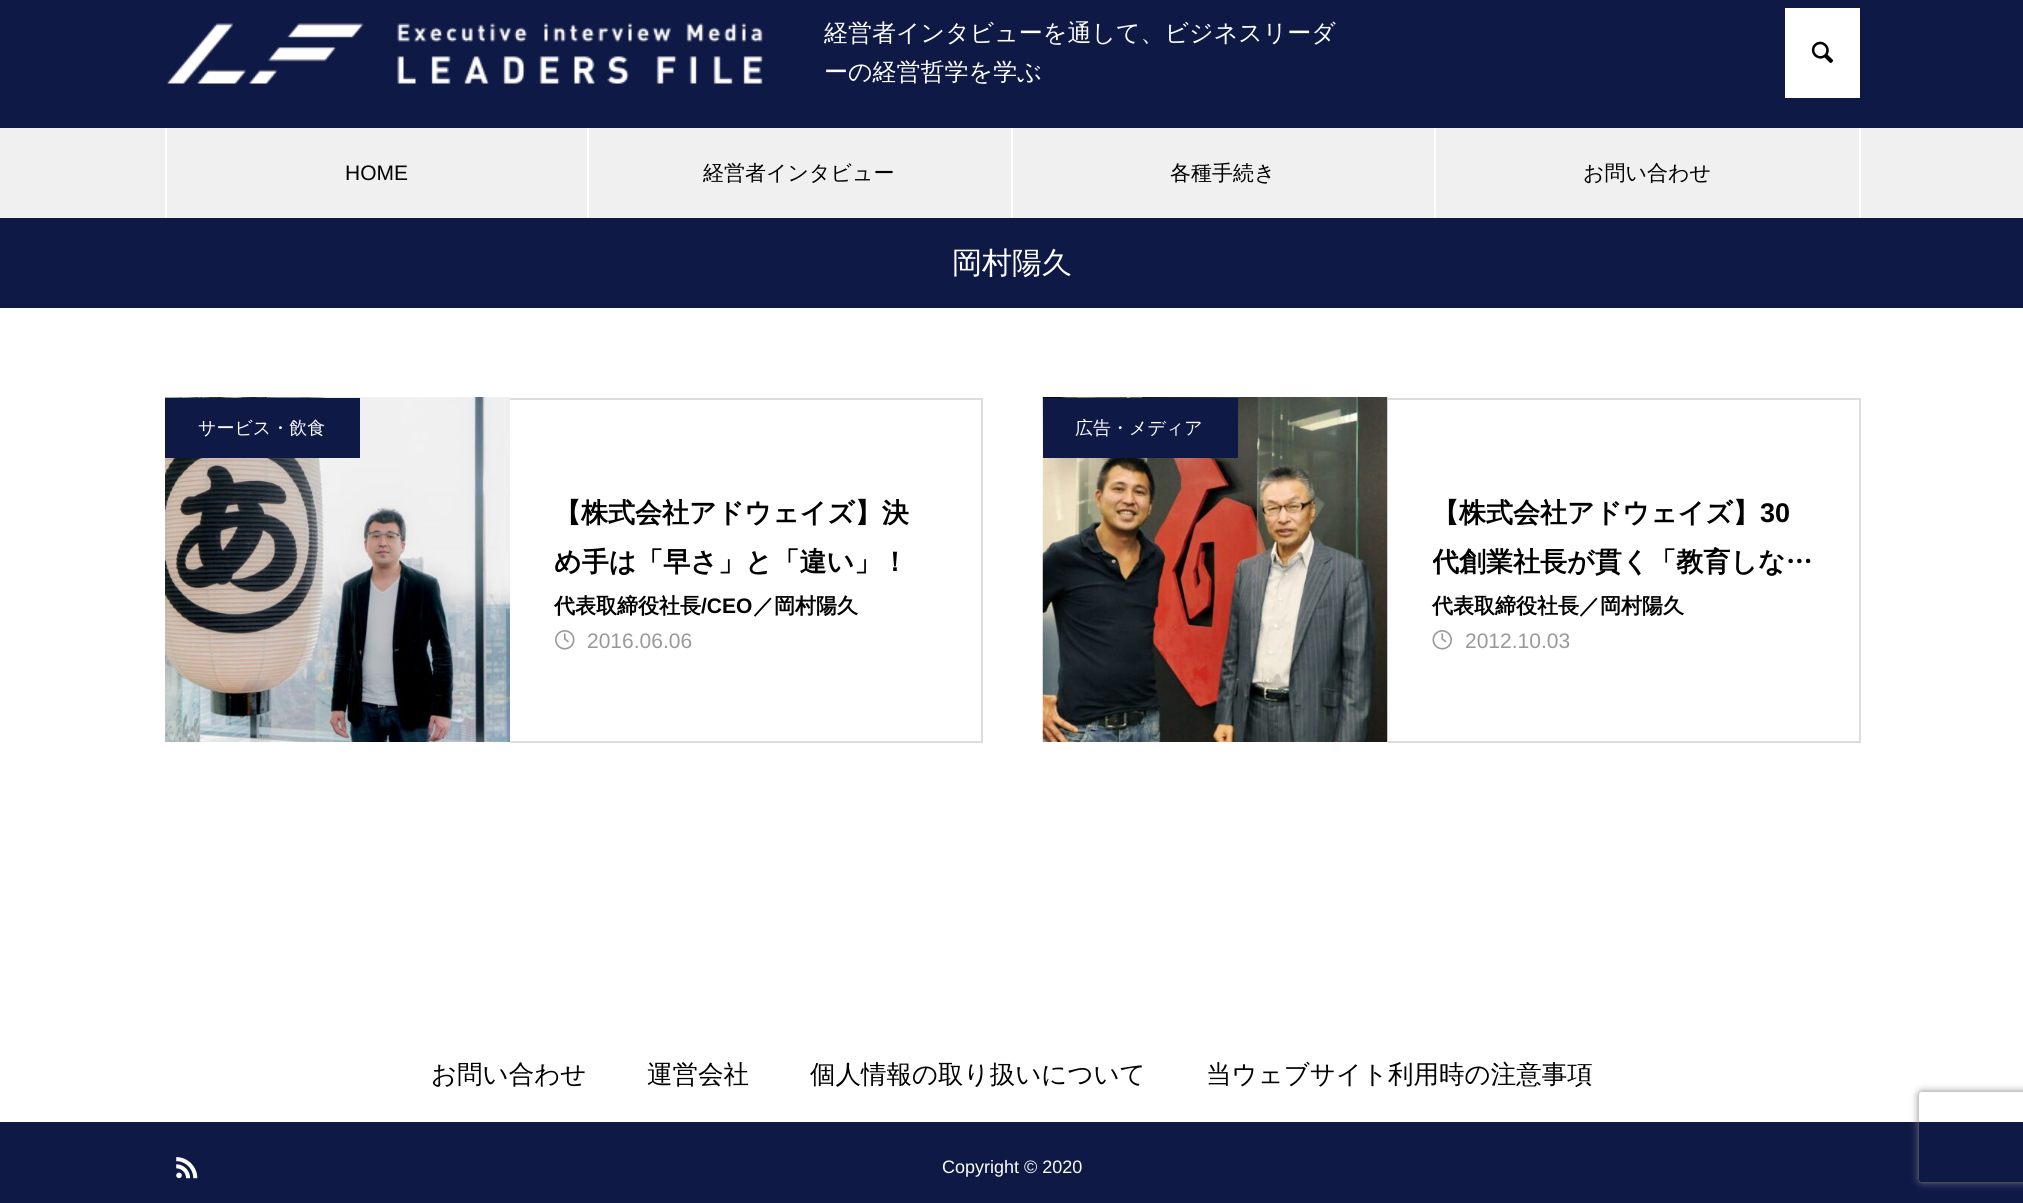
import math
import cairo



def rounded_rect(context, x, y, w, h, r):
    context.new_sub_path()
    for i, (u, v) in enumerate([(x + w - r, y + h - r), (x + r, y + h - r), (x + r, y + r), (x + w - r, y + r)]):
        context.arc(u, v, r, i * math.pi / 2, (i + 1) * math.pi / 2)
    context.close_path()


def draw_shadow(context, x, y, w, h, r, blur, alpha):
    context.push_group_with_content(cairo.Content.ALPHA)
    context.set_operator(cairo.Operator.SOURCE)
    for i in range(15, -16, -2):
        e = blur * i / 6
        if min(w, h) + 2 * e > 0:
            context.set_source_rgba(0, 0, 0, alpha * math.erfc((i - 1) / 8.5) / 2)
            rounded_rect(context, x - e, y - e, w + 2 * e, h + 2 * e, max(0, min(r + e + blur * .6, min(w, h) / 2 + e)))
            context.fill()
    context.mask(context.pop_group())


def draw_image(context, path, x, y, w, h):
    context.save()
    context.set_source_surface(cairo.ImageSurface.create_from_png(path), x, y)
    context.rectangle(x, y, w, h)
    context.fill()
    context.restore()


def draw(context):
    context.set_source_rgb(1, 1, 1)
    context.paint()
    context.set_source_rgb(15 / 255, 25 / 255, 70 / 255)
    context.rectangle(0, 0, 2023, 128)
    context.fill()
    draw_image(context, "images/1.png", 166, 23, 597, 61)
    context.set_source_rgb(1, 1, 1)
    context.rectangle(1785, 8, 75, 90)
    context.fill()
    draw_image(context, "images/2.png", 1811, 41, 23, 22)
    context.set_source_rgb(240 / 255, 240 / 255, 240 / 255)
    context.rectangle(0, 128, 2023, 90)
    context.fill()
    context.set_source_rgb(1, 1, 1)
    context.rectangle(587, 128, 2, 90)
    context.fill()
    context.rectangle(165, 128, 2, 90)
    context.fill()
    context.rectangle(1011, 128, 2, 90)
    context.fill()
    context.rectangle(1434, 128, 2, 90)
    context.fill()
    context.rectangle(1859, 128, 2, 90)
    context.fill()
    context.set_source_rgb(15 / 255, 25 / 255, 70 / 255)
    context.rectangle(0, 218, 2023, 90)
    context.fill()
    draw_image(context, "images/3.png", 165, 397, 345, 345)
    context.rectangle(165, 398, 195, 60)
    context.fill()
    context.set_source_rgb(221 / 255, 221 / 255, 221 / 255)
    context.rectangle(510, 398, 473, 2)
    context.fill()
    context.rectangle(981, 398, 2, 345)
    context.fill()
    context.rectangle(510, 741, 473, 2)
    context.fill()
    draw_image(context, "images/4.png", 555, 630, 20, 20)
    draw_image(context, "images/5.png", 1042, 397, 346, 345)
    context.set_source_rgb(15 / 255, 25 / 255, 70 / 255)
    context.rectangle(1043, 398, 195, 60)
    context.fill()
    context.set_source_rgb(221 / 255, 221 / 255, 221 / 255)
    context.rectangle(1388, 398, 472, 2)
    context.fill()
    context.rectangle(1859, 398, 2, 345)
    context.fill()
    context.rectangle(1388, 741, 472, 2)
    context.fill()
    draw_image(context, "images/6.png", 1432, 630, 20, 20)
    context.set_source_rgb(15 / 255, 25 / 255, 70 / 255)
    context.rectangle(0, 1122, 2023, 81)
    context.fill()
    draw_image(context, "images/7.png", 176, 1157, 22, 22)
    context.save()
    context.set_fill_rule(cairo.FillRule.EVEN_ODD)
    context.new_path()
    context.move_to(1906, 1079)
    context.line_to(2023, 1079)
    context.line_to(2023, 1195)
    context.line_to(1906, 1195)
    context.close_path()
    context.move_to(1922, 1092)
    context.line_to(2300, 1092)
    context.curve_to(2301.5, 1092, 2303, 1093.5, 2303, 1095)
    context.line_to(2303, 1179)
    context.curve_to(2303, 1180.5, 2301.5, 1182, 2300, 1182)
    context.line_to(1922, 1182)
    context.curve_to(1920.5, 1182, 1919, 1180.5, 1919, 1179)
    context.line_to(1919, 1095)
    context.curve_to(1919, 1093.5, 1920.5, 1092, 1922, 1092)
    context.close_path()
    context.clip()
    context.set_source_rgb(128 / 255, 128 / 255, 128 / 255)
    draw_shadow(context, 1919, 1092, 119, 90, 3, 4, 1)
    context.restore()
    context.select_font_face("WenQuanYi Zen Hei Medium")
    context.set_font_size(24)
    context.set_source_rgb(1, 1, 1)
    context.move_to(824, 41)
    context.show_text("経営者インタビューを通して、ビジネスリーダ")
    context.move_to(824, 80)
    context.show_text("ーの経営哲学を学ぶ")
    context.select_font_face("Liberation Sans")
    context.set_font_size(21)
    context.set_source_rgb(0, 0, 0)
    context.move_to(345, 180)
    context.show_text("HOME")
    context.select_font_face("WenQuanYi Zen Hei Medium")
    context.move_to(703, 180)
    context.show_text("経営者インタビュー")
    context.move_to(1170, 180)
    context.show_text("各種手続き")
    context.move_to(1583, 180)
    context.show_text("お問い合わせ")
    context.set_font_size(30)
    context.set_source_rgb(1, 1, 1)
    context.move_to(952, 273)
    context.show_text("岡村陽久")
    context.set_font_size(18)
    context.move_to(198, 434)
    context.show_text("サービス・飲食")
    context.select_font_face("WenQuanYi Zen Hei", cairo.FontSlant.NORMAL, cairo.FontWeight.BOLD)
    context.set_font_size(27)
    context.set_source_rgb(0, 0, 0)
    context.move_to(554, 522)
    context.show_text("【株式会社アドウェイズ】決")
    context.move_to(554, 571)
    context.show_text("め手は「早さ」と「違い」！")
    context.set_font_size(21)
    context.move_to(554, 613)
    context.show_text("代表取締役社長")
    context.select_font_face("Liberation Sans", cairo.FontSlant.NORMAL, cairo.FontWeight.BOLD)
    context.move_to(701, 613)
    context.show_text("/CEO")
    context.select_font_face("WenQuanYi Zen Hei", cairo.FontSlant.NORMAL, cairo.FontWeight.BOLD)
    context.move_to(753, 613)
    context.show_text("／岡村陽久")
    context.select_font_face("Liberation Sans")
    context.set_source_rgb(153 / 255, 153 / 255, 153 / 255)
    context.move_to(587, 648)
    context.show_text("2016.06.06")
    context.select_font_face("WenQuanYi Zen Hei Medium")
    context.set_font_size(18)
    context.set_source_rgb(1, 1, 1)
    context.move_to(1075, 434)
    context.show_text("広告・メディア")
    context.select_font_face("WenQuanYi Zen Hei", cairo.FontSlant.NORMAL, cairo.FontWeight.BOLD)
    context.set_font_size(27)
    context.set_source_rgb(0, 0, 0)
    context.move_to(1432, 522)
    context.show_text("【株式会社アドウェイズ】")
    context.select_font_face("Liberation Sans", cairo.FontSlant.NORMAL, cairo.FontWeight.BOLD)
    context.move_to(1760, 522)
    context.show_text("30")
    context.save()
    context.rectangle(1433, 489, 381, 98)
    context.clip()
    context.select_font_face("WenQuanYi Zen Hei", cairo.FontSlant.NORMAL, cairo.FontWeight.BOLD)
    context.move_to(1432, 571)
    context.show_text("代創業社長が貫く「教育しな…")
    context.restore()
    context.select_font_face("WenQuanYi Zen Hei", cairo.FontSlant.NORMAL, cairo.FontWeight.BOLD)
    context.set_font_size(21)
    context.move_to(1432, 613)
    context.show_text("代表取締役社長／岡村陽久")
    context.select_font_face("Liberation Sans")
    context.set_source_rgb(153 / 255, 153 / 255, 153 / 255)
    context.move_to(1465, 648)
    context.show_text("2012.10.03")
    context.select_font_face("WenQuanYi Zen Hei Medium")
    context.set_font_size(25.5)
    context.set_source_rgb(0, 0, 0)
    context.move_to(431, 1083)
    context.show_text("お問い合わせ")
    context.move_to(647, 1083)
    context.show_text("運営会社")
    context.move_to(810, 1083)
    context.show_text("個人情報の取り扱いについて")
    context.move_to(1206, 1083)
    context.show_text("当ウェブサイト利用時の注意事項")
    context.select_font_face("Liberation Sans")
    context.set_font_size(18)
    context.set_source_rgb(1, 1, 1)
    context.move_to(942, 1173)
    context.show_text("Copyright © 2020")


surface = cairo.ImageSurface(cairo.Format.RGB24, 2023, 1203)
context = cairo.Context(surface)
options = cairo.FontOptions()
options.set_hint_metrics(cairo.HintMetrics.OFF)
options.set_hint_style(cairo.HintStyle.NONE)
context.set_font_options(options)
context.set_miter_limit(4)
draw(context)
surface.write_to_png("out.png")
